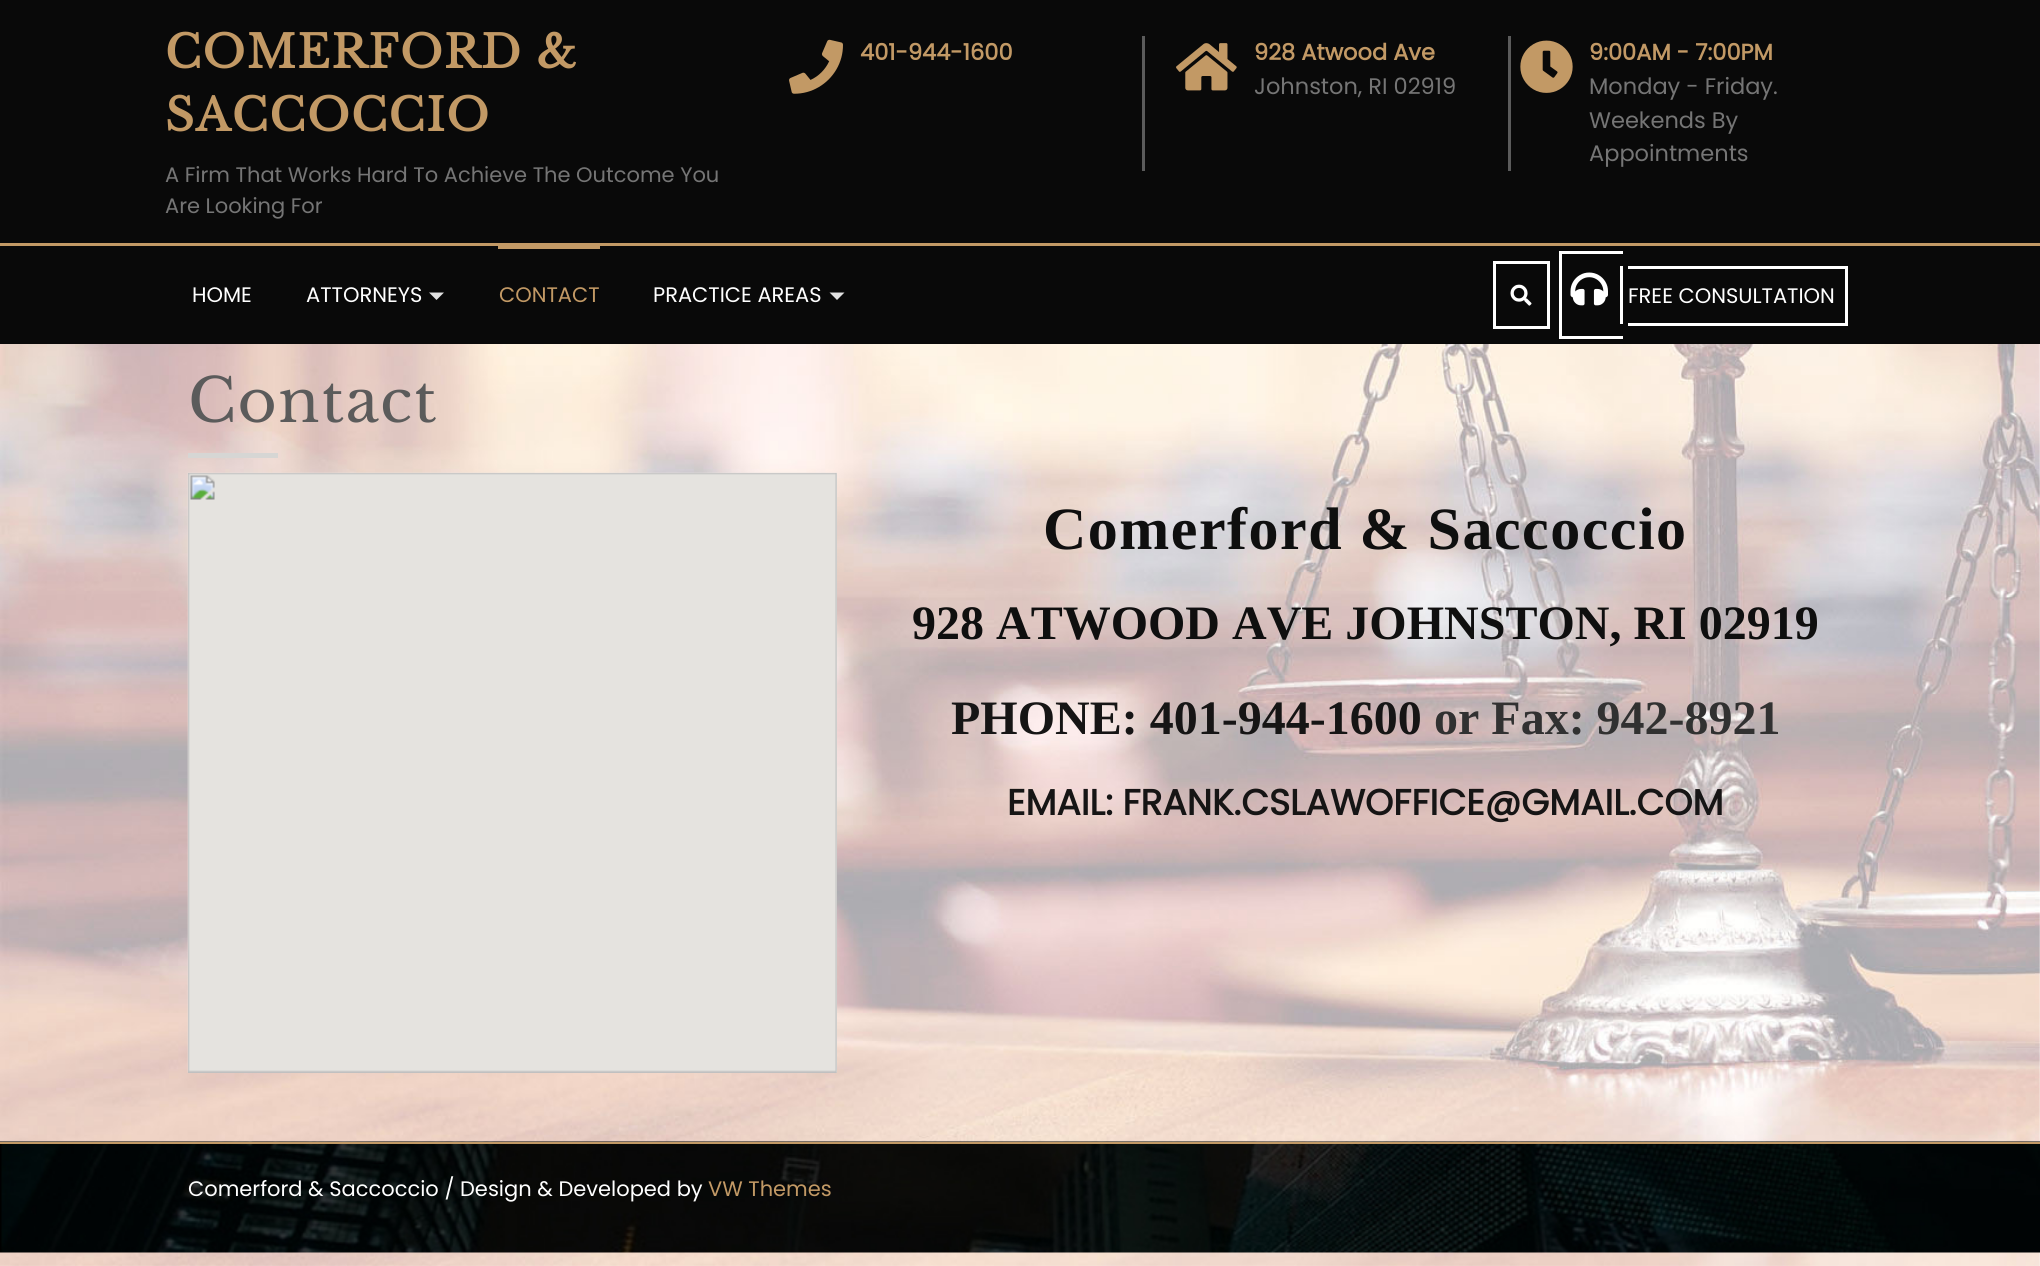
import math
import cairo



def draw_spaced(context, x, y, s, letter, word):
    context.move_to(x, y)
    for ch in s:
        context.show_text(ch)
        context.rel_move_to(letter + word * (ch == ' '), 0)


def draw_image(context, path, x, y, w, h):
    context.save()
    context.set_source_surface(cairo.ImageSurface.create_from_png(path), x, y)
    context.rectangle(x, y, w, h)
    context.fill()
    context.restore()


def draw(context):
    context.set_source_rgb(1, 1, 1)
    context.paint()
    draw_image(context, "images/1.png", 0, 344, 2040, 922)
    context.set_source_rgb(9 / 255, 9 / 255, 9 / 255)
    context.rectangle(0, 0, 2040, 243)
    context.fill()
    context.set_source_rgb(91 / 255, 91 / 255, 91 / 255)
    context.rectangle(1142, 36, 3, 135)
    context.fill()
    draw_image(context, "images/2.png", 789, 39, 54, 55)
    context.rectangle(1508, 36, 3, 135)
    context.fill()
    draw_image(context, "images/3.png", 1176, 43, 61, 48)
    draw_image(context, "images/4.png", 1520, 40, 53, 53)
    context.set_source_rgb(9 / 255, 9 / 255, 9 / 255)
    context.rectangle(0, 246, 2040, 98)
    context.fill()
    context.set_source_rgb(194 / 255, 153 / 255, 101 / 255)
    context.rectangle(0, 243, 2040, 3)
    context.fill()
    context.set_source_rgb(225 / 255, 225 / 255, 225 / 255)
    context.new_path()
    context.move_to(429, 292.5)
    context.line_to(444, 292.5)
    context.line_to(436.5, 300)
    context.close_path()
    context.fill()
    context.set_source_rgb(194 / 255, 153 / 255, 101 / 255)
    context.rectangle(498, 246, 102, 3)
    context.fill()
    context.set_source_rgb(225 / 255, 225 / 255, 225 / 255)
    context.new_path()
    context.move_to(829.5, 292.5)
    context.line_to(844.5, 292.5)
    context.line_to(837, 300)
    context.close_path()
    context.fill()
    context.rectangle(1494.5, 262.5, 54, 65)
    context.set_source_rgb(1, 1, 1)
    context.set_line_width(3)
    context.stroke()
    draw_image(context, "images/5.png", 1510, 284, 22, 22)
    context.rectangle(1559, 251, 64, 3)
    context.fill()
    context.rectangle(1559, 336, 64, 3)
    context.fill()
    context.rectangle(1559, 251, 3, 88)
    context.fill()
    context.rectangle(1628, 266, 220, 3)
    context.fill()
    context.rectangle(1845, 266, 3, 60)
    context.fill()
    context.rectangle(1628, 323, 220, 3)
    context.fill()
    context.rectangle(1620, 266, 3, 58)
    context.fill()
    draw_image(context, "images/6.png", 1570, 272, 38, 34)
    context.set_source_rgb(214 / 255, 214 / 255, 212 / 255)
    context.rectangle(188, 453, 90, 5)
    context.fill()
    draw_image(context, "images/7.png", 187, 472, 650, 601)
    draw_image(context, "images/8.png", 0, 1141, 2040, 112)
    context.set_source_rgb(194 / 255, 153 / 255, 101 / 255)
    context.rectangle(0, 1142, 2040, 2)
    context.fill()
    context.select_font_face("Libre Baskerville", cairo.FontSlant.NORMAL, cairo.FontWeight.BOLD)
    context.set_font_size(45)
    draw_spaced(context, 165, 68, "COMERFORD &", 1.5, 0)
    draw_spaced(context, 165, 131, "SACCOCCIO", 1.5, 0)
    context.select_font_face("Poppins")
    context.set_font_size(21)
    context.set_source_rgb(117 / 255, 117 / 255, 117 / 255)
    context.move_to(165, 182)
    context.show_text("A Firm That Works Hard To Achieve The Outcome You")
    context.move_to(165, 213)
    context.show_text("Are Looking For")
    context.select_font_face("Poppins", cairo.FontSlant.NORMAL, cairo.FontWeight.BOLD)
    context.set_font_size(22.5)
    context.set_source_rgb(194 / 255, 153 / 255, 101 / 255)
    context.move_to(860, 60)
    context.show_text("401-944-1600")
    context.move_to(1254, 60)
    context.show_text("928 Atwood Ave")
    context.select_font_face("Poppins")
    context.set_source_rgb(117 / 255, 117 / 255, 117 / 255)
    context.move_to(1254, 94)
    context.show_text("Johnston, RI 02919")
    context.select_font_face("Poppins", cairo.FontSlant.NORMAL, cairo.FontWeight.BOLD)
    context.set_source_rgb(194 / 255, 153 / 255, 101 / 255)
    context.move_to(1589, 60)
    context.show_text("9:00AM - 7:00PM")
    context.select_font_face("Poppins")
    context.set_source_rgb(117 / 255, 117 / 255, 117 / 255)
    context.move_to(1589, 94)
    context.show_text("Monday - Friday.")
    context.move_to(1589, 128)
    context.show_text("Weekends By")
    context.move_to(1589, 161)
    context.show_text("Appointments")
    context.set_font_size(21)
    context.set_source_rgb(1, 1, 1)
    context.move_to(192, 302)
    context.show_text("HOME")
    context.move_to(306, 302)
    context.show_text("ATTORNEYS")
    context.set_source_rgb(194 / 255, 153 / 255, 101 / 255)
    context.move_to(499, 302)
    context.show_text("CONTACT")
    context.set_source_rgb(1, 1, 1)
    context.move_to(653, 302)
    context.show_text("PRACTICE AREAS")
    context.move_to(1628, 303)
    context.show_text("FREE CONSULTATION")
    context.select_font_face("Libre Baskerville")
    context.set_font_size(60)
    context.set_source_rgb(91 / 255, 91 / 255, 91 / 255)
    draw_spaced(context, 188, 422, "Contact", 1.5, 0)
    context.select_font_face("Liberation Serif", cairo.FontSlant.NORMAL, cairo.FontWeight.BOLD)
    context.set_source_rgb(15 / 255, 15 / 255, 15 / 255)
    draw_spaced(context, 1043, 549, "Comerford & Saccoccio", 1.5, 0)
    context.set_font_size(48)
    context.move_to(912, 639)
    context.show_text("928 ATWOOD AVE JOHNSTON, RI 02919")
    context.set_source_rgb(22 / 255, 21 / 255, 21 / 255)
    context.move_to(951, 734)
    context.show_text("PHONE: 401-944-1600")
    context.set_source_rgb(49 / 255, 49 / 255, 49 / 255)
    context.move_to(1434, 734)
    context.show_text("or Fax: 942-8921")
    context.select_font_face("Poppins", cairo.FontSlant.NORMAL, cairo.FontWeight.BOLD)
    context.set_font_size(36)
    context.set_source_rgb(22 / 255, 21 / 255, 21 / 255)
    context.move_to(1007, 815)
    context.show_text("EMAIL: FRANK.CSLAWOFFICE@GMAIL.COM")
    context.select_font_face("Poppins")
    context.set_font_size(21)
    context.set_source_rgb(1, 1, 1)
    context.move_to(188, 1196)
    context.show_text("Comerford & Saccoccio / Design & Developed by")
    context.set_source_rgb(194 / 255, 153 / 255, 101 / 255)
    context.move_to(708, 1196)
    context.show_text("VW Themes")


surface = cairo.ImageSurface(cairo.Format.RGB24, 2040, 1266)
context = cairo.Context(surface)
options = cairo.FontOptions()
options.set_hint_metrics(cairo.HintMetrics.OFF)
options.set_hint_style(cairo.HintStyle.NONE)
context.set_font_options(options)
context.set_miter_limit(4)
draw(context)
surface.write_to_png("out.png")
